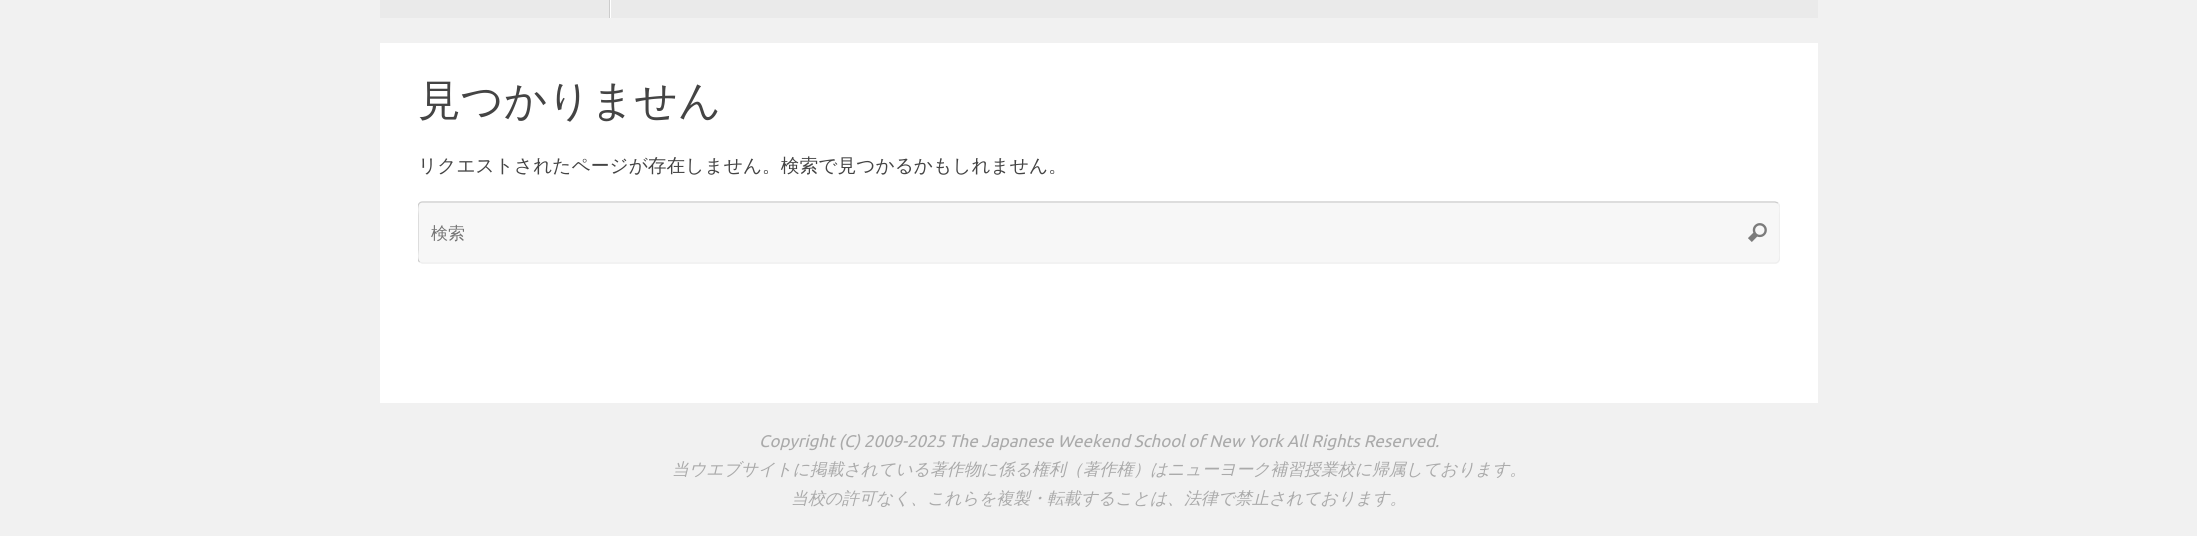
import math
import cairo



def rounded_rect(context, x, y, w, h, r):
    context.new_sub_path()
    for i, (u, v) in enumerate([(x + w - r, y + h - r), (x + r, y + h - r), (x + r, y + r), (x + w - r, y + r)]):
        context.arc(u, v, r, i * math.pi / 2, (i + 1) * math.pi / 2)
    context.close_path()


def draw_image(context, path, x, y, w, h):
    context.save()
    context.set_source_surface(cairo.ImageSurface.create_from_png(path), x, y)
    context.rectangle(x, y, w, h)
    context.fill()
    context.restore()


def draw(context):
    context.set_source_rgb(241 / 255, 241 / 255, 241 / 255)
    context.paint()
    context.set_source_rgb(234 / 255, 234 / 255, 234 / 255)
    context.rectangle(380, 0, 1438, 18)
    context.fill()
    context.set_source_rgb(1, 1, 1)
    context.new_path()
    context.move_to(381, 18)
    context.line_to(611, 18)
    context.line_to(611, -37)
    context.line_to(610, -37)
    context.line_to(610, 18)
    context.close_path()
    context.fill()
    context.set_source_rgb(204 / 255, 204 / 255, 204 / 255)
    context.rectangle(609, 0, 1, 18)
    context.fill()
    context.set_source_rgb(1, 1, 1)
    context.rectangle(380, 43, 1438, 360)
    context.fill()
    context.set_source_rgb(247 / 255, 247 / 255, 247 / 255)
    rounded_rect(context, 418, 201, 1362, 63, 5)
    context.fill()
    context.save()
    context.rectangle(418, 201, 1362, 63)
    context.clip()
    context.new_path()
    context.move_to(1778, 203)
    context.curve_to(1781, 206, 1779.5, 213, 1779.5, 215)
    context.line_to(1779.5, 250)
    context.curve_to(1779.5, 253, 1781.5, 263, 1775, 263)
    context.line_to(422.5, 263)
    context.line_to(419.5, 262)
    context.set_source_rgb(238 / 255, 238 / 255, 238 / 255)
    context.set_line_width(1.2)
    context.stroke()
    context.new_path()
    context.move_to(419.5, 262)
    context.curve_to(416.5, 259, 418, 252, 418, 250)
    context.line_to(418, 215)
    context.curve_to(418, 212, 416, 202, 422.5, 202)
    context.line_to(1775, 202)
    context.line_to(1778, 203)
    context.set_source_rgb(204 / 255, 204 / 255, 204 / 255)
    context.stroke()
    context.restore()
    draw_image(context, "images/1.png", 1748, 223, 19, 19)
    context.select_font_face("WenQuanYi Zen Hei Medium")
    context.set_font_size(42.5)
    context.set_source_rgb(68 / 255, 68 / 255, 68 / 255)
    context.move_to(418, 115)
    context.show_text("見つかりません")
    context.set_font_size(18.75)
    context.move_to(418, 172)
    context.show_text("リクエストされたページが存在しません。検索で見つかるかもしれません。")
    context.set_font_size(17)
    context.set_source_rgb(117 / 255, 117 / 255, 117 / 255)
    context.move_to(431, 239)
    context.show_text("検索")
    context.select_font_face("Ubuntu", cairo.FontSlant.ITALIC)
    context.set_font_size(16.88)
    context.set_source_rgb(170 / 255, 170 / 255, 170 / 255)
    context.move_to(759, 447)
    context.show_text("Copyright (C) 2009-2025 The Japanese Weekend School of New York All Rights Reserved.")
    context.select_font_face("WenQuanYi Zen Hei Medium", cairo.FontSlant.ITALIC)
    context.move_to(672, 475)
    context.show_text("当ウエブサイトに掲載されている著作物に係る権利（著作権）はニューヨーク補習授業校に帰属しております。")
    context.move_to(791, 504)
    context.show_text("当校の許可なく、これらを複製・転載することは、法律で禁止されております。")


surface = cairo.ImageSurface(cairo.Format.RGB24, 2197, 536)
context = cairo.Context(surface)
options = cairo.FontOptions()
options.set_hint_metrics(cairo.HintMetrics.OFF)
options.set_hint_style(cairo.HintStyle.NONE)
context.set_font_options(options)
context.set_miter_limit(4)
draw(context)
surface.write_to_png("out.png")
